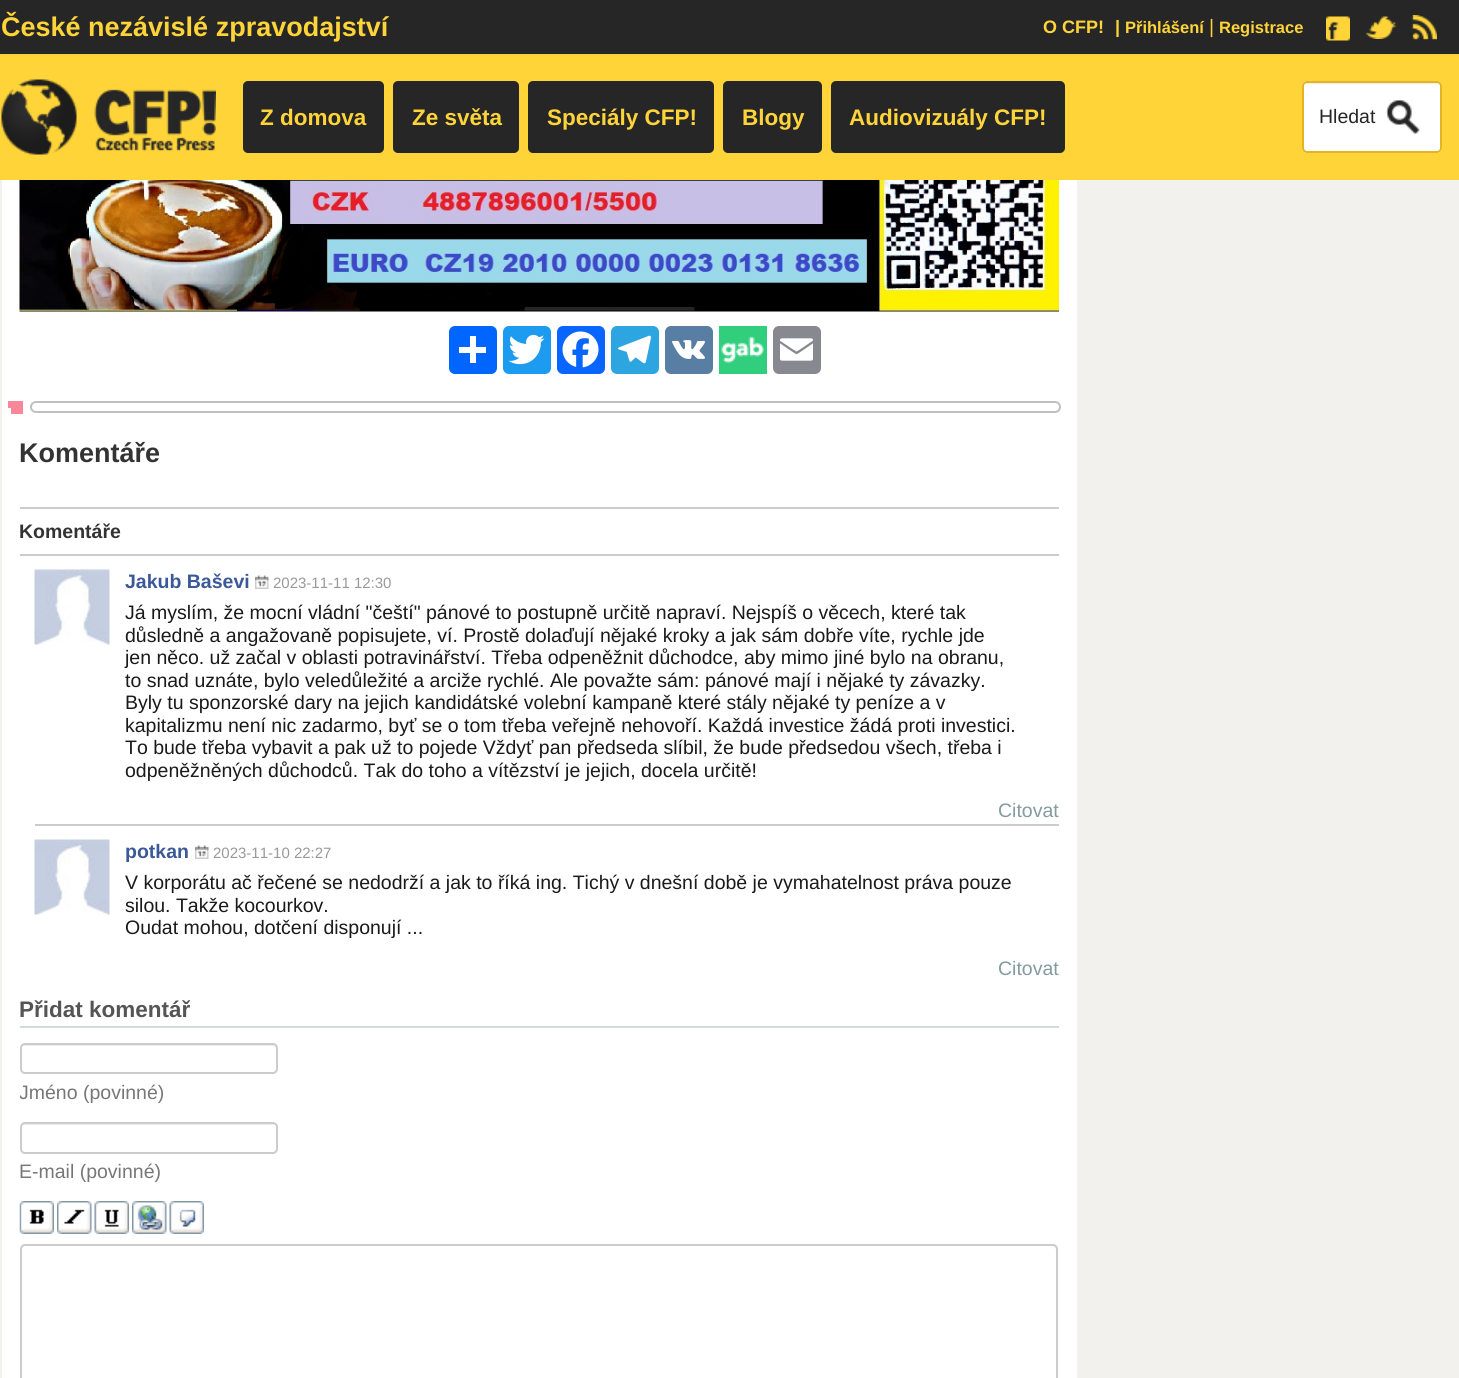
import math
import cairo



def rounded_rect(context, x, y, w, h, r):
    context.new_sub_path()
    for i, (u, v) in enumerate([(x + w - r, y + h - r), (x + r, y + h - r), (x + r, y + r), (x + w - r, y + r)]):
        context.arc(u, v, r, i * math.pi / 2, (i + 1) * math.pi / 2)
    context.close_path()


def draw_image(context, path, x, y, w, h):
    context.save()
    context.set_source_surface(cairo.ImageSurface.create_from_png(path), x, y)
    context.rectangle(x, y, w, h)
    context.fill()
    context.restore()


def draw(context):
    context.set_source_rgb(242 / 255, 241 / 255, 237 / 255)
    context.paint()
    context.set_source_rgb(38 / 255, 38 / 255, 38 / 255)
    context.rectangle(0, 0, 1459, 54)
    context.fill()
    draw_image(context, "images/1.png", 1326, 16, 24, 25)
    draw_image(context, "images/2.png", 1365, 16, 32, 23)
    draw_image(context, "images/3.png", 1411, 15, 26, 25)
    context.set_source_rgb(1, 212 / 255, 57 / 255)
    context.rectangle(0, 54, 1459, 126)
    context.fill()
    draw_image(context, "images/4.png", 1, 79, 215, 76)
    context.set_source_rgb(38 / 255, 38 / 255, 38 / 255)
    rounded_rect(context, 243, 81, 141, 72, 5)
    context.fill()
    rounded_rect(context, 393, 81, 126, 72, 5)
    context.fill()
    rounded_rect(context, 528, 81, 186, 72, 5)
    context.fill()
    rounded_rect(context, 723, 81, 99, 72, 5)
    context.fill()
    rounded_rect(context, 831, 81, 234, 72, 5)
    context.fill()
    context.set_source_rgb(1, 1, 1)
    rounded_rect(context, 1302, 81, 140, 72, 5)
    context.fill()
    context.set_source_rgb(236 / 255, 236 / 255, 236 / 255)
    context.new_path()
    context.move_to(1306, 84)
    context.line_to(1437, 84)
    context.curve_to(1439, 84, 1440, 85, 1440, 87)
    context.curve_to(1440, 85, 1440, 83, 1438, 83)
    context.line_to(1306, 83)
    context.curve_to(1304, 83, 1304, 85, 1304, 87)
    context.curve_to(1304, 85, 1305, 84, 1306, 84)
    context.close_path()
    context.fill()
    rounded_rect(context, 1303, 82, 138, 70, 4)
    context.set_source_rgb(229 / 255, 180 / 255, 34 / 255)
    context.stroke()
    draw_image(context, "images/5.png", 1386, 100, 34, 34)
    context.set_source_rgb(1, 1, 1)
    context.rectangle(2, 180, 1075, 1198)
    context.fill()
    draw_image(context, "images/6.png", 19, 180, 1040, 132)
    context.set_source_rgb(1 / 255, 102 / 255, 1)
    rounded_rect(context, 449, 326, 48, 48, 6)
    context.fill()
    context.set_source_rgb(1, 1, 1)
    context.rectangle(470, 336, 6, 27)
    context.fill()
    context.rectangle(459, 347, 27, 6)
    context.fill()
    context.set_source_rgb(29 / 255, 155 / 255, 240 / 255)
    rounded_rect(context, 503, 326, 48, 48, 6)
    context.fill()
    draw_image(context, "images/7.png", 508, 334, 37, 31)
    context.set_source_rgb(8 / 255, 102 / 255, 1)
    rounded_rect(context, 557, 326, 48, 48, 6)
    context.fill()
    draw_image(context, "images/8.png", 562, 331, 37, 37)
    context.set_source_rgb(44 / 255, 165 / 255, 224 / 255)
    rounded_rect(context, 611, 326, 48, 48, 6)
    context.fill()
    draw_image(context, "images/9.png", 618, 335, 33, 29)
    context.set_source_rgb(88 / 255, 126 / 255, 163 / 255)
    rounded_rect(context, 665, 326, 48, 48, 6)
    context.fill()
    draw_image(context, "images/10.png", 672, 340, 33, 19)
    context.set_source_rgb(48 / 255, 206 / 255, 125 / 255)
    context.rectangle(719, 326, 48, 48)
    context.fill()
    draw_image(context, "images/11.png", 721, 336, 43, 27)
    context.set_source_rgb(136 / 255, 137 / 255, 144 / 255)
    rounded_rect(context, 773, 326, 48, 48, 6)
    context.fill()
    draw_image(context, "images/12.png", 780, 338, 33, 23)
    context.set_source_rgb(249 / 255, 135 / 255, 154 / 255)
    context.rectangle(8, 401, 3, 7)
    context.fill()
    context.rectangle(11, 401, 12, 13)
    context.fill()
    rounded_rect(context, 31, 402, 1029, 10, 5)
    context.set_source_rgb(192 / 255, 192 / 255, 192 / 255)
    context.stroke()
    context.set_source_rgb(204 / 255, 204 / 255, 204 / 255)
    context.rectangle(20, 507, 1039, 2)
    context.fill()
    context.rectangle(20, 554, 1039, 2)
    context.fill()
    draw_image(context, "images/13.png", 34, 569, 76, 76)
    draw_image(context, "images/14.png", 255, 575, 14, 14)
    context.rectangle(35, 824, 1024, 2)
    context.fill()
    draw_image(context, "images/13.png", 34, 839, 76, 76)
    draw_image(context, "images/14.png", 195, 845, 14, 14)
    context.set_source_rgb(210 / 255, 218 / 255, 219 / 255)
    context.rectangle(20, 1026, 1039, 2)
    context.fill()
    context.set_source_rgb(236 / 255, 236 / 255, 236 / 255)
    context.new_path()
    context.move_to(24, 1046)
    context.line_to(273, 1046)
    context.curve_to(275, 1046, 276, 1047, 276, 1048)
    context.curve_to(276, 1046, 275, 1044, 273, 1044)
    context.line_to(24, 1044)
    context.curve_to(22, 1044, 21, 1046, 21, 1048)
    context.curve_to(21, 1047, 22, 1046, 24, 1046)
    context.close_path()
    context.fill()
    rounded_rect(context, 21, 1044, 256, 29, 4)
    context.set_source_rgb(204 / 255, 204 / 255, 204 / 255)
    context.stroke()
    context.set_source_rgb(236 / 255, 236 / 255, 236 / 255)
    context.new_path()
    context.move_to(24, 1125)
    context.line_to(274, 1125)
    context.line_to(276, 1126)
    context.line_to(276, 1128)
    context.curve_to(276, 1126, 275, 1124, 273, 1124)
    context.line_to(24, 1124)
    context.curve_to(22, 1124, 21, 1126, 21, 1128)
    context.curve_to(21, 1126, 22, 1125, 24, 1125)
    context.close_path()
    context.fill()
    rounded_rect(context, 21, 1123, 256, 30, 4)
    context.set_source_rgb(204 / 255, 204 / 255, 204 / 255)
    context.stroke()
    draw_image(context, "images/15.png", 19, 1201, 35, 33)
    draw_image(context, "images/16.png", 57, 1201, 35, 33)
    draw_image(context, "images/17.png", 94, 1201, 35, 33)
    draw_image(context, "images/18.png", 132, 1201, 35, 33)
    draw_image(context, "images/19.png", 169, 1201, 35, 33)
    context.set_source_rgb(236 / 255, 236 / 255, 236 / 255)
    context.new_path()
    context.move_to(24, 1246)
    context.line_to(1053, 1246)
    context.curve_to(1055, 1246, 1056, 1248, 1056, 1250)
    context.line_to(1056, 1248)
    context.curve_to(1056, 1246, 1055, 1245, 1053, 1245)
    context.line_to(24, 1245)
    context.curve_to(22, 1245, 21, 1246, 21, 1248)
    context.line_to(21, 1250)
    context.curve_to(21, 1248, 22, 1246, 24, 1246)
    context.close_path()
    context.fill()
    rounded_rect(context, 21, 1245, 1036, 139, 4)
    context.set_source_rgb(204 / 255, 204 / 255, 204 / 255)
    context.stroke()
    context.select_font_face("Liberation Sans", cairo.FontSlant.NORMAL, cairo.FontWeight.BOLD)
    context.set_font_size(27)
    context.set_source_rgb(1, 212 / 255, 57 / 255)
    context.move_to(1, 36)
    context.show_text("České nezávislé zpravodajství")
    context.set_font_size(18)
    context.move_to(1043, 33)
    context.show_text("O CFP!")
    context.move_to(1115, 33)
    context.show_text("|")
    context.set_font_size(16.5)
    context.move_to(1125, 33)
    context.show_text("Přihlášení")
    context.select_font_face("Liberation Sans")
    context.set_font_size(19.5)
    context.move_to(1209, 33)
    context.show_text("|")
    context.select_font_face("Liberation Sans", cairo.FontSlant.NORMAL, cairo.FontWeight.BOLD)
    context.set_font_size(16.5)
    context.move_to(1219, 33)
    context.show_text("Registrace")
    context.set_font_size(22.5)
    context.move_to(260, 125)
    context.show_text("Z domova")
    context.move_to(412, 125)
    context.show_text("Ze světa")
    context.move_to(547, 125)
    context.show_text("Speciály CFP!")
    context.move_to(742, 125)
    context.show_text("Blogy")
    context.move_to(849, 125)
    context.show_text("Audiovizuály CFP!")
    context.select_font_face("Liberation Sans")
    context.set_font_size(19.5)
    context.set_source_rgb(38 / 255, 38 / 255, 38 / 255)
    context.move_to(1319, 123)
    context.show_text("Hledat")
    context.select_font_face("Liberation Sans", cairo.FontSlant.NORMAL, cairo.FontWeight.BOLD)
    context.set_font_size(27)
    context.set_source_rgb(51 / 255, 51 / 255, 51 / 255)
    context.move_to(19, 462)
    context.show_text("Komentáře")
    context.set_font_size(19.5)
    context.move_to(19, 538)
    context.show_text("Komentáře")
    context.set_source_rgb(59 / 255, 89 / 255, 152 / 255)
    context.move_to(125, 588)
    context.show_text("Jakub Baševi")
    context.select_font_face("Liberation Sans")
    context.set_font_size(15)
    context.set_source_rgb(153 / 255, 153 / 255, 153 / 255)
    context.move_to(273, 588)
    context.show_text("2023-11-11 12:30")
    context.set_font_size(19.5)
    context.set_source_rgb(26 / 255, 26 / 255, 26 / 255)
    context.move_to(125, 619)
    context.show_text("Já myslím, že mocní vládní \"čeští\" pánové to postupně určitě napraví. Nejspíš o věcech, které tak")
    context.move_to(125, 642)
    context.show_text("důsledně a angažovaně popisujete, ví. Prostě dolaďují nějaké kroky a jak sám dobře víte, rychle jde")
    context.move_to(125, 664)
    context.show_text("jen něco. už začal v oblasti potravinářství. Třeba odpeněžnit důchodce, aby mimo jiné bylo na obranu,")
    context.move_to(125, 687)
    context.show_text("to snad uznáte, bylo veledůležité a arciže rychlé. Ale považte sám: pánové mají i nějaké ty závazky.")
    context.move_to(125, 709)
    context.show_text("Byly tu sponzorské dary na jejich kandidátské volební kampaně které stály nějaké ty peníze a v")
    context.move_to(125, 732)
    context.show_text("kapitalizmu není nic zadarmo, byť se o tom třeba veřejně nehovoří. Každá investice žádá proti investici.")
    context.move_to(125, 754)
    context.show_text("To bude třeba vybavit a pak už to pojede Vždyť pan předseda slíbil, že bude předsedou všech, třeba i")
    context.move_to(125, 777)
    context.show_text("odpeněžněných důchodců. Tak do toho a vítězství je jejich, docela určitě!")
    context.set_source_rgb(132 / 255, 155 / 255, 159 / 255)
    context.move_to(998, 817)
    context.show_text("Citovat")
    context.select_font_face("Liberation Sans", cairo.FontSlant.NORMAL, cairo.FontWeight.BOLD)
    context.set_source_rgb(59 / 255, 89 / 255, 152 / 255)
    context.move_to(125, 858)
    context.show_text("potkan")
    context.select_font_face("Liberation Sans")
    context.set_font_size(15)
    context.set_source_rgb(153 / 255, 153 / 255, 153 / 255)
    context.move_to(213, 858)
    context.show_text("2023-11-10 22:27")
    context.set_font_size(19.5)
    context.set_source_rgb(26 / 255, 26 / 255, 26 / 255)
    context.move_to(125, 889)
    context.show_text("V korporátu ač řečené se nedodrží a jak to říká ing. Tichý v dnešní době je vymahatelnost práva pouze")
    context.move_to(125, 912)
    context.show_text("silou. Takže kocourkov.")
    context.move_to(125, 934)
    context.show_text("Oudat mohou, dotčení disponují ...")
    context.set_source_rgb(132 / 255, 155 / 255, 159 / 255)
    context.move_to(998, 975)
    context.show_text("Citovat")
    context.select_font_face("Liberation Sans", cairo.FontSlant.NORMAL, cairo.FontWeight.BOLD)
    context.set_font_size(22.5)
    context.set_source_rgb(85 / 255, 85 / 255, 85 / 255)
    context.move_to(19, 1017)
    context.show_text("Přidat komentář")
    context.save()
    context.rectangle(20, 1043, 1039, 64)
    context.clip()
    context.select_font_face("Liberation Sans")
    context.set_font_size(19.5)
    context.set_source_rgb(119 / 255, 119 / 255, 119 / 255)
    context.move_to(19, 1099)
    context.show_text("Jméno (povinné)")
    context.restore()
    context.select_font_face("Liberation Sans")
    context.set_font_size(19.5)
    context.set_source_rgb(119 / 255, 119 / 255, 119 / 255)
    context.move_to(19, 1178)
    context.show_text("E-mail (povinné)")


surface = cairo.ImageSurface(cairo.Format.RGB24, 1459, 1378)
context = cairo.Context(surface)
options = cairo.FontOptions()
options.set_hint_metrics(cairo.HintMetrics.OFF)
options.set_hint_style(cairo.HintStyle.NONE)
context.set_font_options(options)
context.set_miter_limit(4)
draw(context)
surface.write_to_png("out.png")
